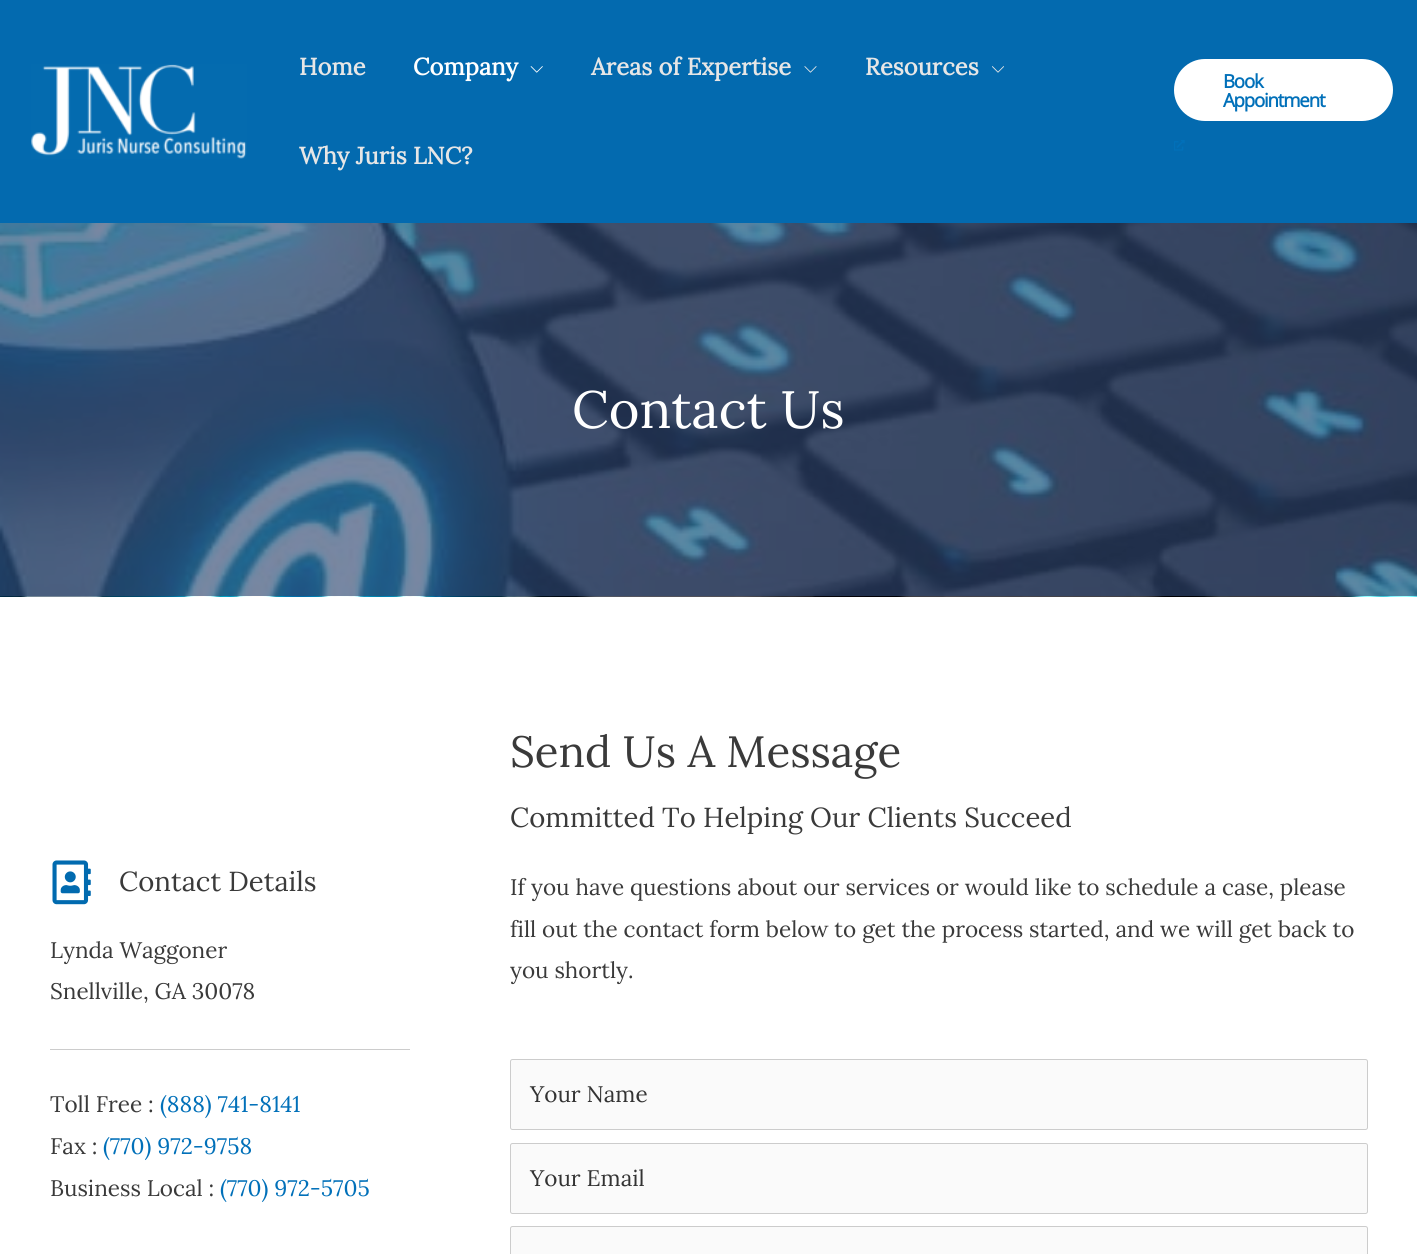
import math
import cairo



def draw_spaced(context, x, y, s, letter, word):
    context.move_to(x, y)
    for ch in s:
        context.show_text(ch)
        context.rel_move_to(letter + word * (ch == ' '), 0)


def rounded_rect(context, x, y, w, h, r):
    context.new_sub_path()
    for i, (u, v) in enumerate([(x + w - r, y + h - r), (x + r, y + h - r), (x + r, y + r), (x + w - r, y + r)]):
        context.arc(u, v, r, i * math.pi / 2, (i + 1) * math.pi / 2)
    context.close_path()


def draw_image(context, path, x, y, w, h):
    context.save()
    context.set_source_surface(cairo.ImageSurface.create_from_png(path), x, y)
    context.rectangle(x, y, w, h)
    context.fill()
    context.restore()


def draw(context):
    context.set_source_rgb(1, 1, 1)
    context.paint()
    context.set_source_rgb(3 / 255, 106 / 255, 175 / 255)
    context.rectangle(0, 0, 1417, 223)
    context.fill()
    draw_image(context, "images/1.png", 31, 64, 216, 95)
    draw_image(context, "images/2.png", 530, 66, 13, 7)
    draw_image(context, "images/3.png", 804, 66, 13, 7)
    draw_image(context, "images/4.png", 992, 66, 12, 7)
    context.set_source_rgb(1, 1, 1)
    rounded_rect(context, 1174, 59, 219, 62, 31)
    context.fill()
    draw_image(context, "images/5.png", 1174, 140, 11, 11)
    draw_image(context, "images/6.png", 0, 223, 1417, 374)
    draw_image(context, "images/7.png", 52, 860, 39, 45)
    context.set_source_rgb(204 / 255, 204 / 255, 204 / 255)
    context.rectangle(50, 1049, 360, 1)
    context.fill()
    context.set_source_rgb(250 / 255, 250 / 255, 250 / 255)
    rounded_rect(context, 510.5, 1059.5, 857, 70, 2)
    context.fill_preserve()
    context.set_source_rgb(204 / 255, 204 / 255, 204 / 255)
    context.set_line_width(1)
    context.stroke()
    context.set_source_rgb(250 / 255, 250 / 255, 250 / 255)
    rounded_rect(context, 510.5, 1143.5, 857, 70, 2)
    context.fill_preserve()
    context.set_source_rgb(204 / 255, 204 / 255, 204 / 255)
    context.stroke()
    context.set_source_rgb(250 / 255, 250 / 255, 250 / 255)
    rounded_rect(context, 510.5, 1226.5, 857, 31, 2)
    context.fill_preserve()
    context.set_source_rgb(204 / 255, 204 / 255, 204 / 255)
    context.stroke()
    context.select_font_face("Lora", cairo.FontSlant.NORMAL, cairo.FontWeight.BOLD)
    context.set_font_size(23.75)
    context.set_source_rgb(230 / 255, 230 / 255, 230 / 255)
    context.move_to(299, 75)
    context.show_text("Home")
    context.set_source_rgb(1, 1, 1)
    context.move_to(413, 75)
    context.show_text("Company")
    context.set_source_rgb(230 / 255, 230 / 255, 230 / 255)
    context.move_to(591, 75)
    context.show_text("Areas of Expertise")
    context.move_to(865, 75)
    context.show_text("Resources")
    context.move_to(299, 164)
    context.show_text("Why Juris LNC?")
    context.select_font_face("Open Sans", cairo.FontSlant.NORMAL, cairo.FontWeight.BOLD)
    context.set_font_size(18.75)
    context.set_source_rgb(1 / 255, 112 / 255, 185 / 255)
    draw_spaced(context, 1223, 88, "Book", -1.25, 0)
    draw_spaced(context, 1223, 107, "Appointment", -1.25, 0)
    context.select_font_face("Lora")
    context.set_font_size(52.5)
    context.set_source_rgb(1, 1, 1)
    context.move_to(572, 428)
    context.show_text("Contact Us")
    context.set_font_size(27.5)
    context.set_source_rgb(58 / 255, 58 / 255, 58 / 255)
    context.move_to(119, 891)
    context.show_text("Contact Details")
    context.set_font_size(22.5)
    context.move_to(50, 958)
    context.show_text("Lynda Waggoner")
    context.move_to(50, 999)
    context.show_text("Snellville, GA 30078")
    context.move_to(50, 1112)
    context.show_text("Toll Free :")
    context.set_source_rgb(1 / 255, 112 / 255, 185 / 255)
    context.move_to(160, 1112)
    context.show_text("(888) 741-8141")
    context.set_source_rgb(58 / 255, 58 / 255, 58 / 255)
    context.move_to(50, 1154)
    context.show_text("Fax :")
    context.set_source_rgb(1 / 255, 112 / 255, 185 / 255)
    context.move_to(103, 1154)
    context.show_text("(770) 972-9758")
    context.set_source_rgb(58 / 255, 58 / 255, 58 / 255)
    context.move_to(50, 1196)
    context.show_text("Business Local :")
    context.set_source_rgb(1 / 255, 112 / 255, 185 / 255)
    context.move_to(220, 1196)
    context.show_text("(770) 972-5705")
    context.set_font_size(43.75)
    context.set_source_rgb(58 / 255, 58 / 255, 58 / 255)
    context.move_to(510, 767)
    context.show_text("Send Us A Message")
    context.set_font_size(27.5)
    context.move_to(510, 827)
    context.show_text("Committed To Helping Our Clients Succeed")
    context.set_font_size(22.5)
    context.move_to(510, 895)
    context.show_text("If you have questions about our services or would like to schedule a case, please")
    context.move_to(510, 937)
    context.show_text("fill out the contact form below to get the process started, and we will get back to")
    context.move_to(510, 978)
    context.show_text("you shortly.")
    context.set_source_rgb(51 / 255, 51 / 255, 51 / 255)
    context.move_to(530, 1102)
    context.show_text("Your Name")
    context.move_to(530, 1186)
    context.show_text("Your Email")


surface = cairo.ImageSurface(cairo.Format.RGB24, 1417, 1254)
context = cairo.Context(surface)
options = cairo.FontOptions()
options.set_hint_metrics(cairo.HintMetrics.OFF)
options.set_hint_style(cairo.HintStyle.NONE)
context.set_font_options(options)
context.set_miter_limit(4)
draw(context)
surface.write_to_png("out.png")
